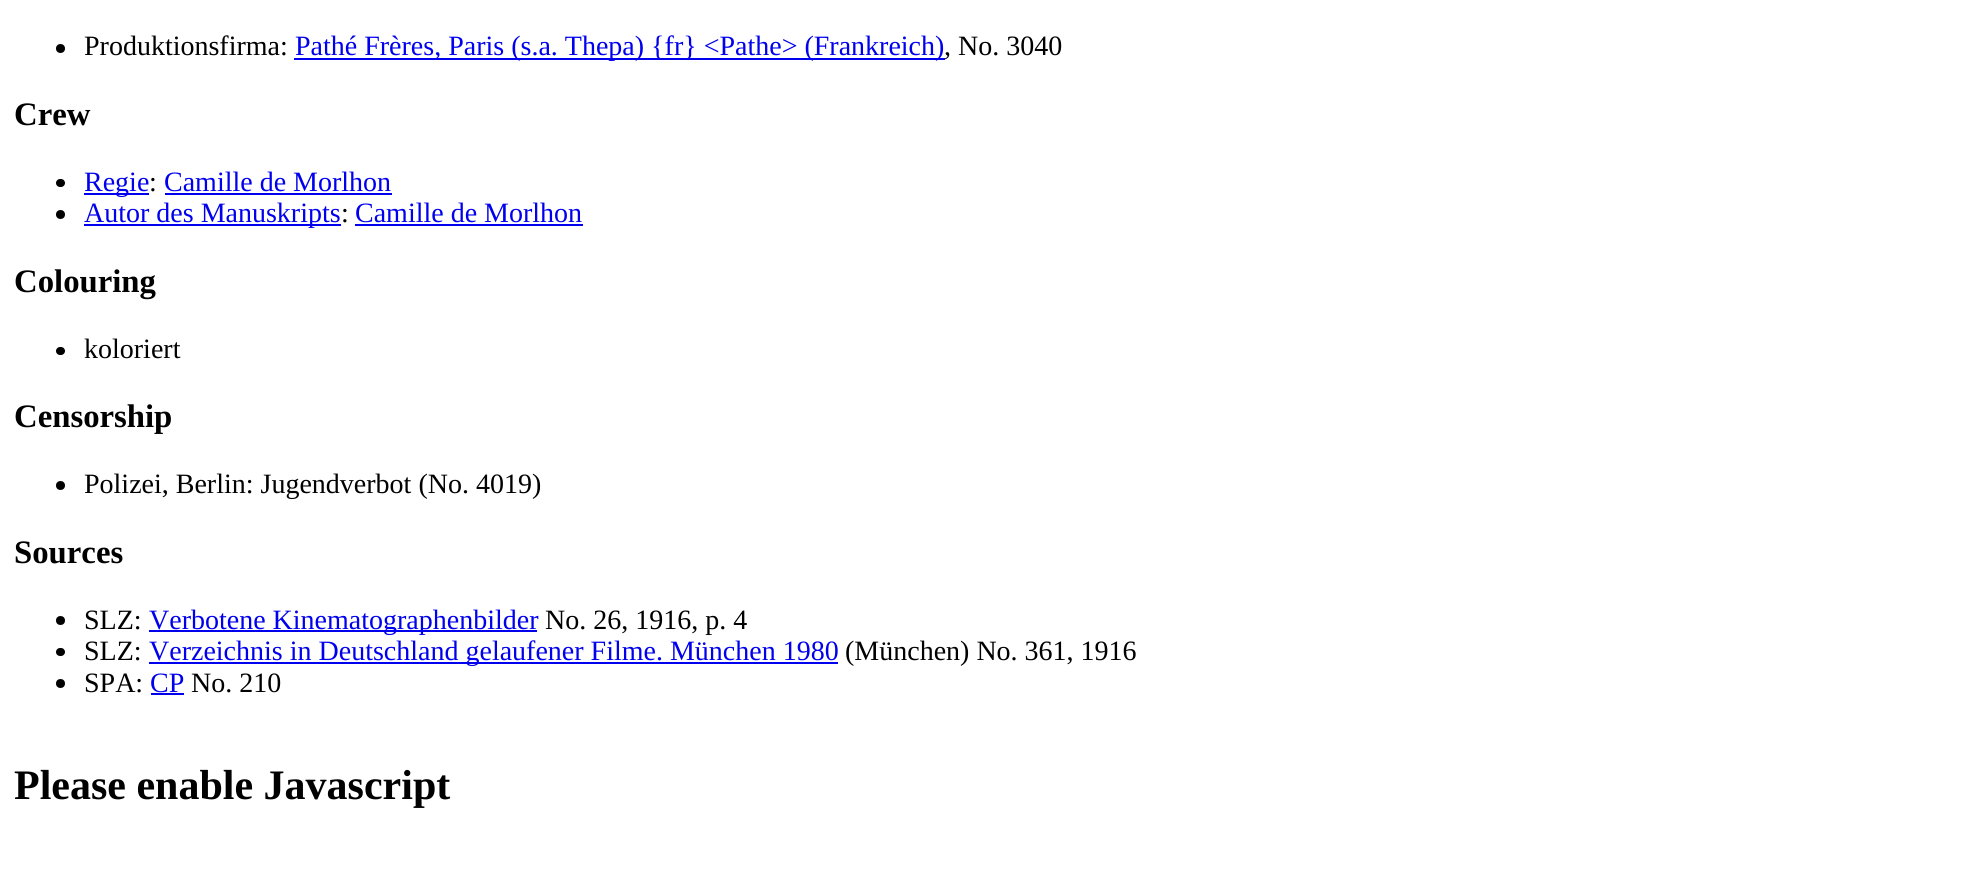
import math
import cairo



def rounded_rect(context, x, y, w, h, r):
    context.new_sub_path()
    for i, (u, v) in enumerate([(x + w - r, y + h - r), (x + r, y + h - r), (x + r, y + r), (x + w - r, y + r)]):
        context.arc(u, v, r, i * math.pi / 2, (i + 1) * math.pi / 2)
    context.close_path()


def draw(context):
    context.set_source_rgb(1, 1, 1)
    context.paint()
    context.set_source_rgb(0, 0, 0)
    context.arc(60.5, 48.5, 4.5, 0, 2 * math.pi)
    context.fill()
    context.set_source_rgb(0, 0, 238 / 255)
    context.rectangle(294, 58, 651, 2)
    context.fill()
    context.set_source_rgb(0, 0, 0)
    rounded_rect(context, 56, 179, 9, 8, 4)
    context.fill()
    context.set_source_rgb(0, 0, 238 / 255)
    context.rectangle(84, 193, 65, 2)
    context.fill()
    context.rectangle(165, 193, 227, 2)
    context.fill()
    context.set_source_rgb(0, 0, 0)
    context.arc(60.5, 214.5, 4.5, 0, 2 * math.pi)
    context.fill()
    context.set_source_rgb(0, 0, 238 / 255)
    context.rectangle(84, 224, 257, 2)
    context.fill()
    context.rectangle(355, 224, 228, 2)
    context.fill()
    context.set_source_rgb(0, 0, 0)
    rounded_rect(context, 56, 347, 9, 8, 4)
    context.fill()
    context.arc(60.5, 485.5, 4.5, 0, 2 * math.pi)
    context.fill()
    context.arc(60.5, 620.5, 4.5, 0, 2 * math.pi)
    context.fill()
    context.set_source_rgb(0, 0, 238 / 255)
    context.rectangle(149, 630, 388, 2)
    context.fill()
    context.set_source_rgb(0, 0, 0)
    rounded_rect(context, 56, 648, 9, 8, 4)
    context.fill()
    context.set_source_rgb(0, 0, 238 / 255)
    context.rectangle(149, 662, 689, 2)
    context.fill()
    context.set_source_rgb(0, 0, 0)
    context.arc(60.5, 683.5, 4.5, 0, 2 * math.pi)
    context.fill()
    context.set_source_rgb(0, 0, 238 / 255)
    context.rectangle(151, 693, 33, 2)
    context.fill()
    context.select_font_face("Liberation Serif")
    context.set_font_size(28)
    context.set_source_rgb(0, 0, 0)
    context.move_to(84, 55)
    context.show_text("Produktionsfirma:")
    context.set_source_rgb(0, 0, 238 / 255)
    context.move_to(295, 55)
    context.show_text("Pathé Frères, Paris (s.a. Thepa) {fr} <Pathe> (Frankreich)")
    context.set_source_rgb(0, 0, 0)
    context.move_to(944, 55)
    context.show_text(", No. 3040")
    context.select_font_face("Liberation Serif", cairo.FontSlant.NORMAL, cairo.FontWeight.BOLD)
    context.set_font_size(32.75)
    context.move_to(14, 125)
    context.show_text("Crew")
    context.select_font_face("Liberation Serif")
    context.set_font_size(28)
    context.set_source_rgb(0, 0, 238 / 255)
    context.move_to(84, 191)
    context.show_text("Regie")
    context.set_source_rgb(0, 0, 0)
    context.move_to(149, 191)
    context.show_text(":")
    context.set_source_rgb(0, 0, 238 / 255)
    context.move_to(164, 191)
    context.show_text("Camille de Morlhon")
    context.move_to(84, 222)
    context.show_text("Autor des Manuskripts")
    context.set_source_rgb(0, 0, 0)
    context.move_to(341, 222)
    context.show_text(":")
    context.set_source_rgb(0, 0, 238 / 255)
    context.move_to(355, 222)
    context.show_text("Camille de Morlhon")
    context.select_font_face("Liberation Serif", cairo.FontSlant.NORMAL, cairo.FontWeight.BOLD)
    context.set_font_size(32.75)
    context.set_source_rgb(0, 0, 0)
    context.move_to(14, 292)
    context.show_text("Colouring")
    context.select_font_face("Liberation Serif")
    context.set_font_size(28)
    context.move_to(84, 358)
    context.show_text("koloriert")
    context.select_font_face("Liberation Serif", cairo.FontSlant.NORMAL, cairo.FontWeight.BOLD)
    context.set_font_size(32.75)
    context.move_to(14, 427)
    context.show_text("Censorship")
    context.select_font_face("Liberation Serif")
    context.set_font_size(28)
    context.move_to(84, 493)
    context.show_text("Polizei, Berlin: Jugendverbot (No. 4019)")
    context.select_font_face("Liberation Serif", cairo.FontSlant.NORMAL, cairo.FontWeight.BOLD)
    context.set_font_size(32.75)
    context.move_to(14, 563)
    context.show_text("Sources")
    context.select_font_face("Liberation Serif")
    context.set_font_size(28)
    context.move_to(84, 629)
    context.show_text("SLZ:")
    context.set_source_rgb(0, 0, 238 / 255)
    context.move_to(149, 629)
    context.show_text("Verbotene Kinematographenbilder")
    context.set_source_rgb(0, 0, 0)
    context.move_to(545, 629)
    context.show_text("No. 26, 1916, p. 4")
    context.move_to(84, 660)
    context.show_text("SLZ:")
    context.set_source_rgb(0, 0, 238 / 255)
    context.move_to(149, 660)
    context.show_text("Verzeichnis in Deutschland gelaufener Filme. München 1980")
    context.set_source_rgb(0, 0, 0)
    context.move_to(845, 660)
    context.show_text("(München) No. 361, 1916")
    context.move_to(84, 692)
    context.show_text("SPA:")
    context.set_source_rgb(0, 0, 238 / 255)
    context.move_to(150, 692)
    context.show_text("CP")
    context.set_source_rgb(0, 0, 0)
    context.move_to(191, 692)
    context.show_text("No. 210")
    context.select_font_face("Liberation Serif", cairo.FontSlant.NORMAL, cairo.FontWeight.BOLD)
    context.set_font_size(42)
    context.move_to(14, 799)
    context.show_text("Please enable Javascript")


surface = cairo.ImageSurface(cairo.Format.RGB24, 1971, 871)
context = cairo.Context(surface)
options = cairo.FontOptions()
options.set_hint_metrics(cairo.HintMetrics.OFF)
options.set_hint_style(cairo.HintStyle.NONE)
context.set_font_options(options)
context.set_miter_limit(4)
draw(context)
surface.write_to_png("out.png")
